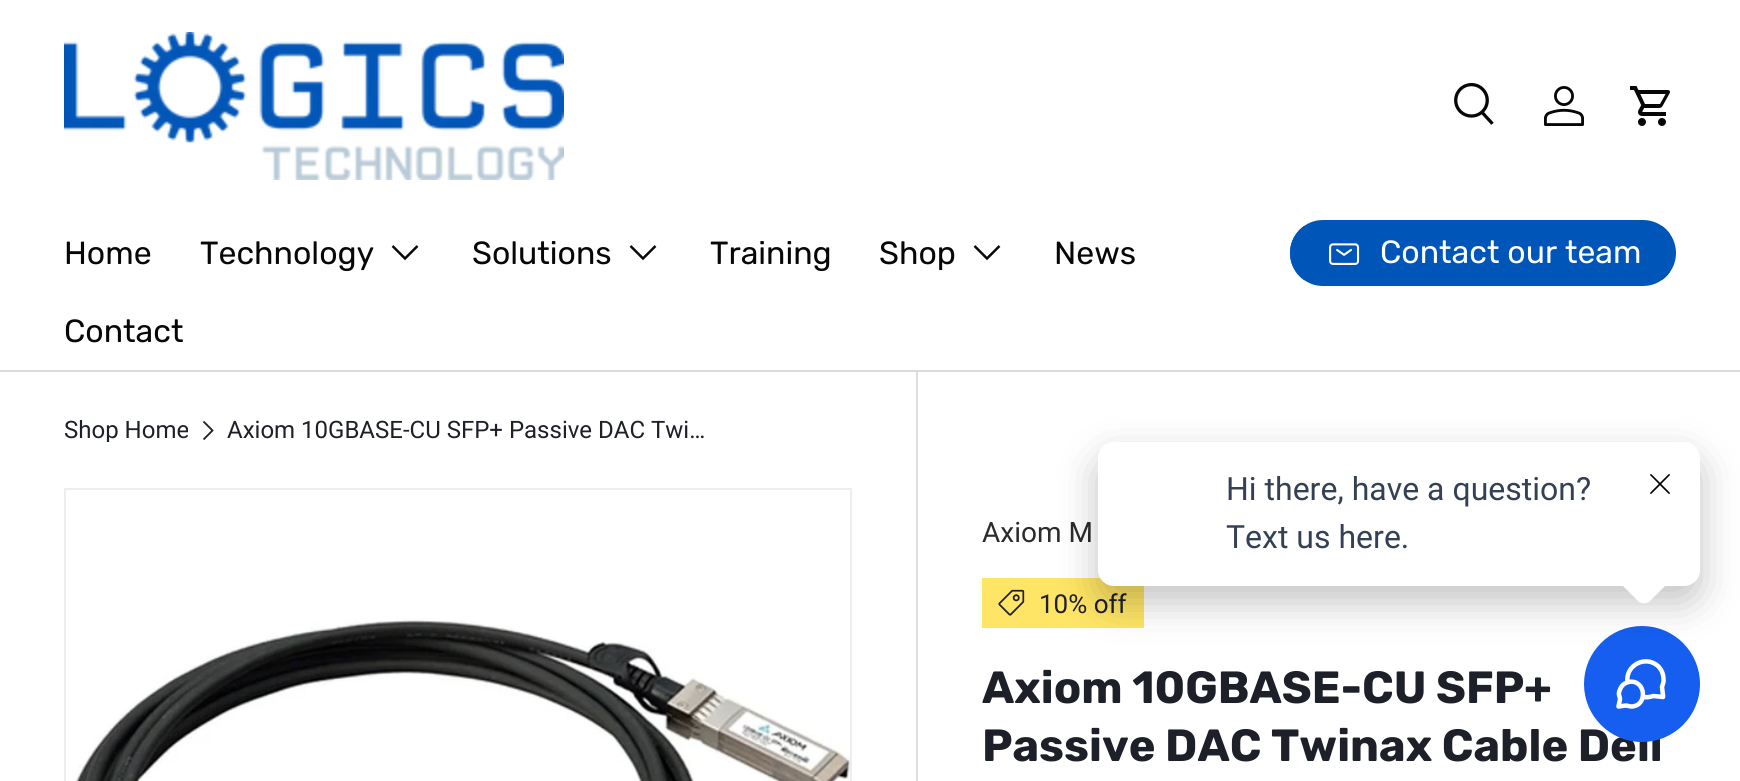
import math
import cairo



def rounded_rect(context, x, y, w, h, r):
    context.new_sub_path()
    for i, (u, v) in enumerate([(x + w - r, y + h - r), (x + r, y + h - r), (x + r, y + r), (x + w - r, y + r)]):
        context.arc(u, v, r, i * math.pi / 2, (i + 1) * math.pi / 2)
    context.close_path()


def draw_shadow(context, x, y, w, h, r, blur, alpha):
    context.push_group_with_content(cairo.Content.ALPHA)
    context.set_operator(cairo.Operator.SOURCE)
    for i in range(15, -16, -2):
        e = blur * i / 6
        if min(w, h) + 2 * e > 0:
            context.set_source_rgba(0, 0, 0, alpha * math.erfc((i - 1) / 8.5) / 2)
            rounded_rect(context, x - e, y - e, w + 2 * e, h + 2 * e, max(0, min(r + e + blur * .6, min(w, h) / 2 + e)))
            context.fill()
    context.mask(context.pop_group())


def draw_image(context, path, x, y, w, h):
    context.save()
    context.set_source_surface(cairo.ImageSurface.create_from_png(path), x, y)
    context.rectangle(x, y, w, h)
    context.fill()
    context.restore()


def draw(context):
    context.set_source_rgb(1, 1, 1)
    context.paint()
    context.set_source_rgb(218 / 255, 218 / 255, 218 / 255)
    context.rectangle(0, 370, 1740, 2)
    context.fill()
    draw_image(context, "images/1.png", 64, 32, 500, 148)
    draw_image(context, "images/2.png", 1454, 83, 40, 42)
    draw_image(context, "images/3.png", 1544, 86, 40, 40)
    draw_image(context, "images/4.png", 1630, 86, 40, 40)
    context.new_path()
    context.move_to(417.5, 246)
    context.line_to(405, 258.5)
    context.line_to(392.5, 246)
    context.set_source_rgb(7 / 255, 7 / 255, 7 / 255)
    context.set_line_width(2.5)
    context.stroke()
    context.new_path()
    context.move_to(655.5, 246)
    context.line_to(643, 258.5)
    context.line_to(630.5, 246)
    context.stroke()
    context.new_path()
    context.move_to(999.5, 246)
    context.line_to(987, 258.5)
    context.line_to(974.5, 246)
    context.stroke()
    context.save()
    rounded_rect(context, 1290, 220, 386, 66, 33)
    context.clip()
    gradient = cairo.LinearGradient(574, 120, 1644, 386)
    gradient.add_color_stop_rgba(0.6, 40 / 255, 118 / 255, 208 / 255, 1)
    gradient.add_color_stop_rgba(0.6, 0, 85 / 255, 184 / 255, 1)
    gradient.add_color_stop_rgba(1, 0, 85 / 255, 184 / 255, 1)
    context.set_source(gradient)
    context.rectangle(1290, 226, 380, 54)
    context.fill()
    context.restore()
    rounded_rect(context, 1293, 223, 380, 60, 30)
    context.set_source_rgb(0, 85 / 255, 184 / 255)
    context.set_line_width(6)
    context.stroke()
    draw_image(context, "images/5.png", 1329, 243, 31, 22)
    context.new_path()
    context.move_to(203.5, 421.5)
    context.line_to(212.5, 430.5)
    context.line_to(203.5, 439.5)
    context.set_source_rgb(29 / 255, 32 / 255, 40 / 255)
    context.set_line_width(1.8)
    context.stroke()
    context.rectangle(65, 489, 786, 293)
    context.set_source_rgb(238 / 255, 238 / 255, 238 / 255)
    context.set_line_width(2)
    context.stroke()
    draw_image(context, "images/6.png", 66, 490, 784, 291)
    context.set_source_rgb(221 / 255, 222 / 255, 223 / 255)
    context.rectangle(916, 372, 2, 409)
    context.fill()
    context.set_source_rgb(1, 229 / 255, 102 / 255)
    context.rectangle(982, 578, 162, 50)
    context.fill()
    draw_image(context, "images/7.png", 998, 589, 27, 27)
    context.select_font_face("Rubik")
    context.set_font_size(32)
    context.set_source_rgb(7 / 255, 7 / 255, 7 / 255)
    context.move_to(64, 264)
    context.show_text("Home")
    context.move_to(200, 264)
    context.show_text("Technology")
    context.move_to(472, 264)
    context.show_text("Solutions")
    context.move_to(710, 264)
    context.show_text("Training")
    context.move_to(879, 264)
    context.show_text("Shop")
    context.move_to(1054, 264)
    context.show_text("News")
    context.move_to(64, 342)
    context.show_text("Contact")
    context.set_source_rgb(1, 1, 1)
    context.move_to(1380, 263)
    context.show_text("Contact our team")
    context.save()
    context.rectangle(64, 418, 126, 24)
    context.clip()
    context.select_font_face("Roboto")
    context.set_font_size(24)
    context.set_source_rgb(29 / 255, 32 / 255, 40 / 255)
    context.move_to(64, 438)
    context.show_text("Shop Home")
    context.restore()
    context.select_font_face("Roboto")
    context.set_font_size(24)
    context.set_source_rgb(29 / 255, 32 / 255, 40 / 255)
    context.move_to(227, 438)
    context.show_text("Axiom 10GBASE-CU SFP+ Passive DAC Twi…")
    context.set_font_size(28)
    context.set_source_rgb(42 / 255, 43 / 255, 42 / 255)
    context.move_to(982, 542)
    context.show_text("Axiom M")
    context.set_font_size(26)
    context.set_source_rgb(29 / 255, 32 / 255, 40 / 255)
    context.move_to(1039, 613)
    context.show_text("10% off")
    context.select_font_face("Rubik", cairo.FontSlant.NORMAL, cairo.FontWeight.BOLD)
    context.set_font_size(45.1)
    context.move_to(982, 703)
    context.show_text("Axiom 10GBASE-CU SFP+")
    context.move_to(982, 761)
    context.show_text("Passive DAC Twinax Cable Dell")
    context.set_source_rgb(21 / 255, 94 / 255, 239 / 255)
    context.new_path()
    context.arc(1642, 684, 58, 0, 2 * math.pi)
    context.fill()
    context.new_path()
    context.move_to(1627.5, 682.5)
    context.curve_to(1625, 665, 1646, 654.5, 1658.5, 666.5)
    context.curve_to(1662, 670.5, 1663.5, 674.5, 1663.5, 679.5)
    context.curve_to(1664, 682, 1662.5, 684.5, 1662, 687)
    context.line_to(1663, 695.5)
    context.line_to(1663, 697)
    context.line_to(1653.5, 696)
    context.line_to(1649.5, 697)
    context.line_to(1642.5, 697.5)
    context.move_to(1631, 706.5)
    context.curve_to(1648.5, 706.5, 1646, 678.5, 1628.5, 682)
    context.curve_to(1624.5, 683, 1621.5, 685.5, 1620, 689.5)
    context.curve_to(1617.5, 695, 1620, 695.5, 1620, 699.5)
    context.line_to(1618.5, 706.5)
    context.line_to(1626, 705.5)
    context.close_path()
    context.set_source_rgb(1, 1, 1)
    context.set_line_width(4.5)
    context.set_line_cap(cairo.LineCap.ROUND)
    context.set_line_join(cairo.LineJoin.ROUND)
    context.stroke()
    context.set_source_rgb(0, 0, 0)
    draw_shadow(context, 1098, 458, 602, 144, 16, 20, 0.24)
    context.set_source_rgb(1, 1, 1)
    rounded_rect(context, 1098, 442, 602, 144, 16)
    context.fill()
    draw_image(context, "images/8.png", 1650, 474, 20, 20)
    context.select_font_face("Roboto")
    context.set_font_size(32)
    context.set_source_rgb(52 / 255, 64 / 255, 84 / 255)
    context.move_to(1226, 548)
    context.show_text("Text us here.")
    context.move_to(1226, 500)
    context.show_text("Hi there, have a question?")
    context.set_source_rgb(1, 1, 1)
    context.new_path()
    context.move_to(1650, 555)
    context.line_to(1667, 572)
    context.curve_to(1670, 575, 1670, 581, 1667, 584)
    context.line_to(1650, 601)
    context.curve_to(1647, 604, 1641, 604, 1638, 601)
    context.line_to(1621, 584)
    context.curve_to(1618, 581, 1618, 575, 1621, 572)
    context.line_to(1638, 555)
    context.curve_to(1641, 552, 1647, 552, 1650, 555)
    context.close_path()
    context.fill()


surface = cairo.ImageSurface(cairo.Format.RGB24, 1740, 781)
context = cairo.Context(surface)
options = cairo.FontOptions()
options.set_hint_metrics(cairo.HintMetrics.OFF)
options.set_hint_style(cairo.HintStyle.NONE)
context.set_font_options(options)
context.set_miter_limit(4)
draw(context)
surface.write_to_png("out.png")
